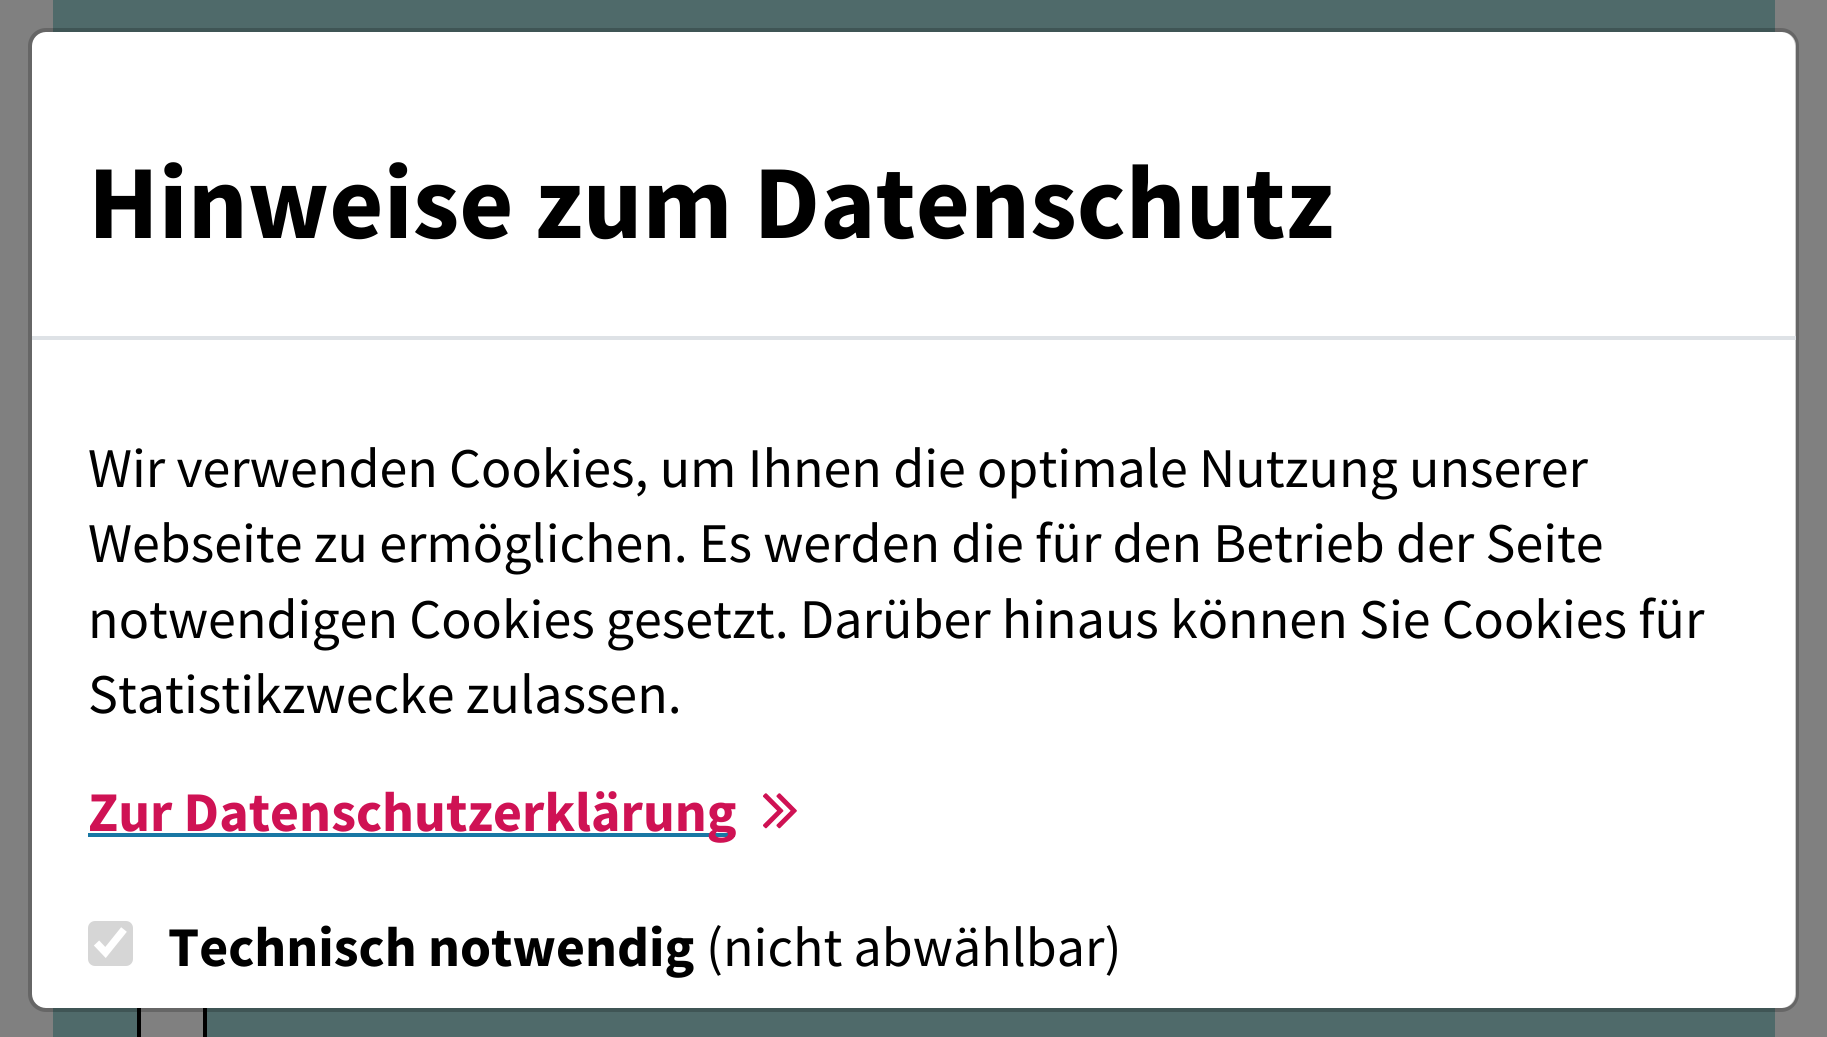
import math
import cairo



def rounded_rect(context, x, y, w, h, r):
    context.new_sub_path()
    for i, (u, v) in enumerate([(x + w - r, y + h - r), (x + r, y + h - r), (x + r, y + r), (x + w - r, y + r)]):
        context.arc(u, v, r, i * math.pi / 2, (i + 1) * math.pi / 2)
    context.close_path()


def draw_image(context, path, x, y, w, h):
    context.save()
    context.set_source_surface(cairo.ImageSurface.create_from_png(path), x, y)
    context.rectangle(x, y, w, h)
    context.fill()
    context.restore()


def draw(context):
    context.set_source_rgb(128 / 255, 128 / 255, 128 / 255)
    context.paint()
    context.set_source_rgb(79 / 255, 106 / 255, 106 / 255)
    context.rectangle(53, 0, 1722, 1037)
    context.fill()
    context.set_source_rgb(128 / 255, 128 / 255, 128 / 255)
    context.rectangle(141, 1008, 62, 29)
    context.fill()
    context.rectangle(139, 989, 66, 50)
    context.set_source_rgb(0, 0, 0)
    context.set_line_width(4)
    context.stroke()
    context.set_source_rgb(1, 1, 1)
    rounded_rect(context, 32, 32, 1764, 976, 14)
    context.fill()
    rounded_rect(context, 30, 30, 1767, 980, 16)
    context.set_source_rgba(0, 0, 0, 0.2)
    context.stroke()
    context.set_source_rgb(222 / 255, 226 / 255, 230 / 255)
    context.rectangle(32, 336, 1764, 4)
    context.fill()
    context.set_source_rgb(25 / 255, 119 / 255, 164 / 255)
    context.rectangle(88, 833, 647, 4)
    context.fill()
    draw_image(context, "images/1.png", 763, 793, 34, 36)
    context.set_source_rgb(214 / 255, 214 / 255, 214 / 255)
    rounded_rect(context, 88, 921, 45, 45, 7)
    context.fill()
    context.new_path()
    context.move_to(96.5, 943)
    context.line_to(105.5, 952.5)
    context.line_to(124, 929.5)
    context.set_source_rgb(1, 1, 1)
    context.set_line_width(7.3)
    context.stroke()
    context.select_font_face("Source Sans Pro", cairo.FontSlant.NORMAL, cairo.FontWeight.BOLD)
    context.set_font_size(105)
    context.set_source_rgb(0, 0, 0)
    context.move_to(88, 238)
    context.show_text("Hinweise zum Datenschutz")
    context.select_font_face("Source Sans Pro")
    context.set_font_size(56)
    context.move_to(88, 487)
    context.show_text("Wir verwenden Cookies, um Ihnen die optimale Nutzung unserer")
    context.move_to(88, 562)
    context.show_text("Webseite zu ermöglichen. Es werden die für den Betrieb der Seite")
    context.move_to(88, 638)
    context.show_text("notwendigen Cookies gesetzt. Darüber hinaus können Sie Cookies für")
    context.move_to(88, 713)
    context.show_text("Statistikzwecke zulassen.")
    context.select_font_face("Source Sans Pro", cairo.FontSlant.NORMAL, cairo.FontWeight.BOLD)
    context.set_source_rgb(207 / 255, 18 / 255, 84 / 255)
    context.move_to(88, 831)
    context.show_text("Zur Datenschutzerklärung")
    context.set_source_rgb(0, 0, 0)
    context.move_to(168, 966)
    context.show_text("Technisch notwendig")
    context.select_font_face("Source Sans Pro")
    context.move_to(706, 966)
    context.show_text("(nicht abwählbar)")


surface = cairo.ImageSurface(cairo.Format.RGB24, 1827, 1037)
context = cairo.Context(surface)
options = cairo.FontOptions()
options.set_hint_metrics(cairo.HintMetrics.OFF)
options.set_hint_style(cairo.HintStyle.NONE)
context.set_font_options(options)
context.set_miter_limit(4)
draw(context)
surface.write_to_png("out.png")
